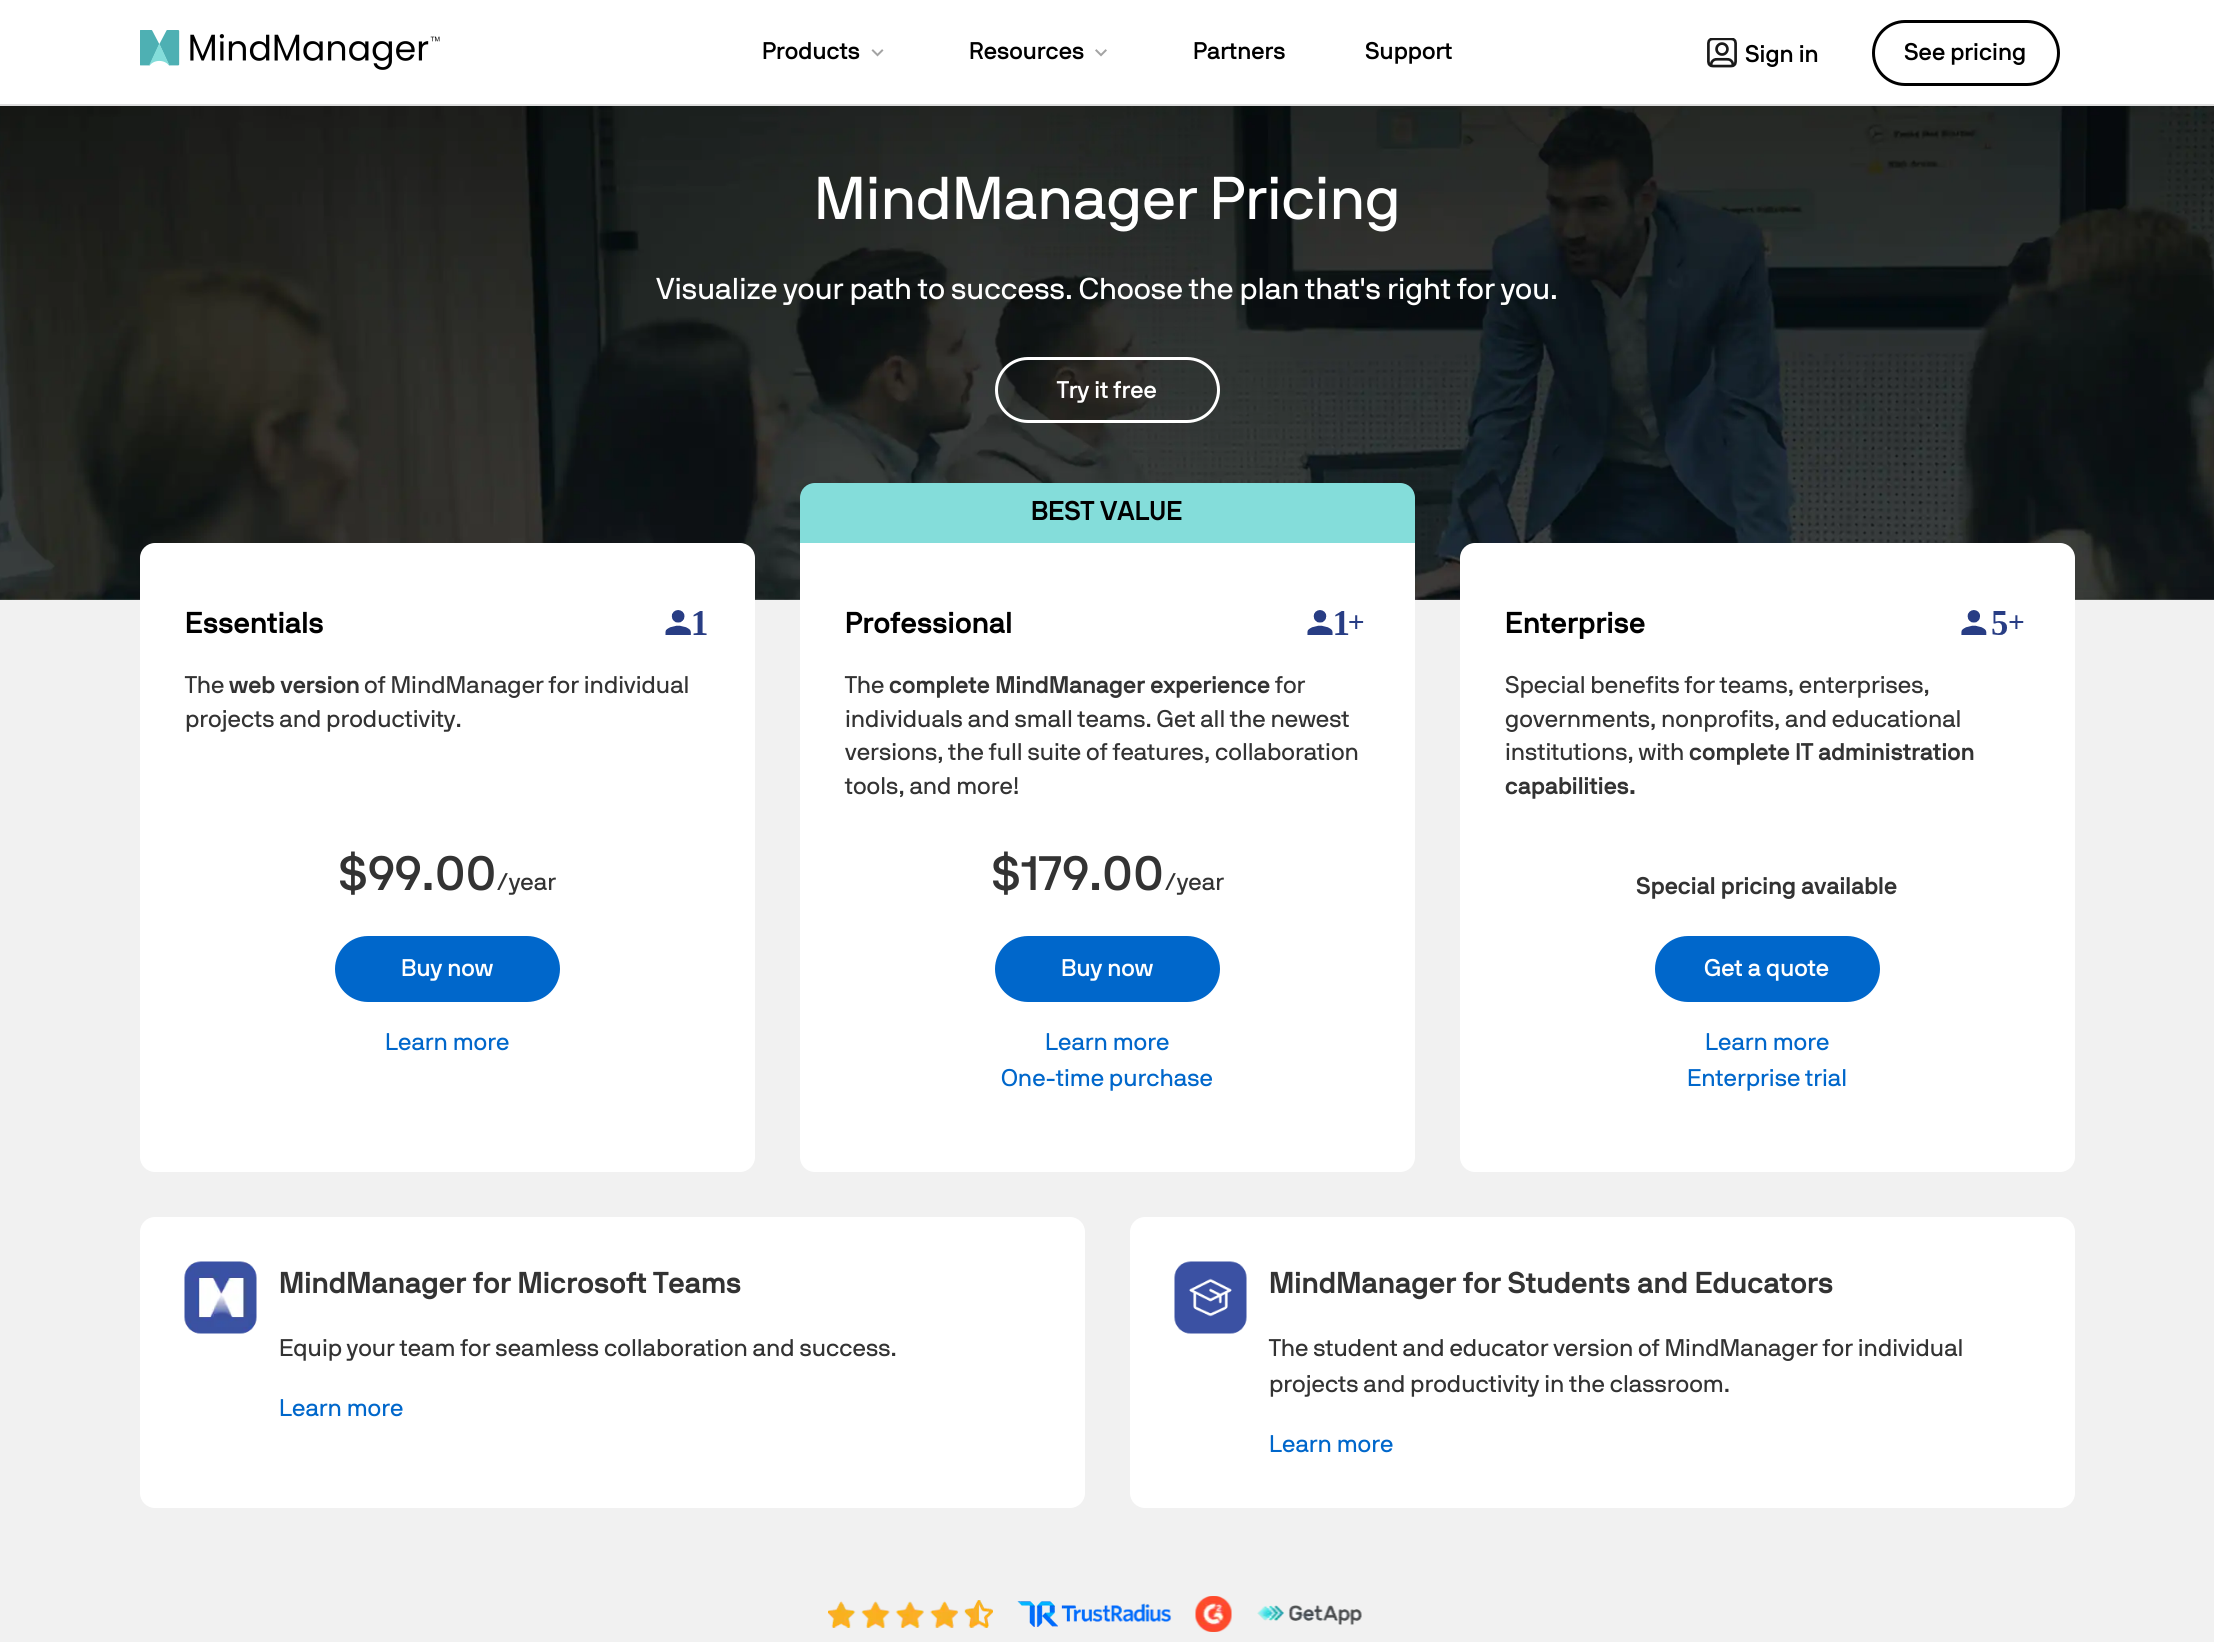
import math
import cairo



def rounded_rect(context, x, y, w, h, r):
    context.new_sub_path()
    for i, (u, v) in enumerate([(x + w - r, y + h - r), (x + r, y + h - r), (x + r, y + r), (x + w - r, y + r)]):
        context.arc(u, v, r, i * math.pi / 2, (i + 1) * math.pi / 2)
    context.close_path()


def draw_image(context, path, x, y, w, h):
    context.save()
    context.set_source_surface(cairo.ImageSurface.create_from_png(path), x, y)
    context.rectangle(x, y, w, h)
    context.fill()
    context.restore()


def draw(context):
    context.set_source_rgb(241 / 255, 241 / 255, 241 / 255)
    context.paint()
    context.set_source_rgb(1, 1, 1)
    context.rectangle(0, 0, 2214, 104)
    context.fill()
    context.set_source_rgb(222 / 255, 222 / 255, 222 / 255)
    context.rectangle(0, 104, 2214, 2)
    context.fill()
    draw_image(context, "images/1.png", 140, 30, 300, 40)
    draw_image(context, "images/2.png", 871, 49, 13, 8)
    draw_image(context, "images/3.png", 1095, 49, 12, 8)
    draw_image(context, "images/4.png", 1707, 38, 30, 30)
    rounded_rect(context, 1873.5, 21.5, 185, 63, 31.5)
    context.set_source_rgb(0, 0, 0)
    context.set_line_width(3)
    context.stroke()
    draw_image(context, "images/5.png", 0, 106, 2214, 494)
    rounded_rect(context, 996.5, 358.5, 222, 63, 31.5)
    context.set_source_rgb(1, 1, 1)
    context.stroke()
    rounded_rect(context, 140, 543, 615, 629, 15)
    context.fill()
    draw_image(context, "images/6.png", 665, 610, 42, 25)
    context.set_source_rgb(0, 103 / 255, 203 / 255)
    rounded_rect(context, 336.5, 937.5, 222, 63, 31.5)
    context.fill_preserve()
    context.stroke()
    context.set_source_rgb(1, 1, 1)
    context.new_path()
    context.move_to(800, 543)
    context.line_to(1415, 543)
    context.line_to(1415, 1157)
    context.curve_to(1415, 1165.5, 1408.5, 1172, 1400, 1172)
    context.line_to(815, 1172)
    context.curve_to(806.5, 1172, 800, 1165.5, 800, 1157)
    context.close_path()
    context.fill()
    context.set_source_rgb(132 / 255, 221 / 255, 218 / 255)
    context.new_path()
    context.move_to(815, 483)
    context.line_to(1400, 483)
    context.curve_to(1408.5, 483, 1415, 489.5, 1415, 498)
    context.line_to(1415, 543)
    context.line_to(800, 543)
    context.line_to(800, 498)
    context.curve_to(800, 489.5, 806.5, 483, 815, 483)
    context.close_path()
    context.fill()
    draw_image(context, "images/7.png", 1307, 610, 57, 25)
    context.set_source_rgb(0, 103 / 255, 203 / 255)
    rounded_rect(context, 996.5, 937.5, 222, 63, 31.5)
    context.fill_preserve()
    context.stroke()
    context.set_source_rgb(1, 1, 1)
    rounded_rect(context, 1460, 543, 615, 629, 15)
    context.fill()
    draw_image(context, "images/8.png", 1961, 610, 63, 25)
    context.set_source_rgb(0, 103 / 255, 203 / 255)
    rounded_rect(context, 1656.5, 937.5, 222, 63, 31.5)
    context.fill_preserve()
    context.stroke()
    context.set_source_rgb(1, 1, 1)
    rounded_rect(context, 140, 1217, 945, 291, 15)
    context.fill()
    draw_image(context, "images/9.png", 184, 1261, 73, 73)
    rounded_rect(context, 1130, 1217, 945, 291, 15)
    context.fill()
    draw_image(context, "images/10.png", 1174, 1261, 73, 73)
    draw_image(context, "images/11.png", 828, 1600, 165, 28)
    draw_image(context, "images/12.png", 1017, 1601, 155, 26)
    draw_image(context, "images/13.png", 1195, 1596, 37, 36)
    draw_image(context, "images/14.png", 1257, 1605, 105, 20)
    context.select_font_face("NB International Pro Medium")
    context.set_font_size(24)
    context.set_source_rgb(0, 0, 0)
    context.move_to(762, 59)
    context.show_text("Products")
    context.move_to(969, 59)
    context.show_text("Resources")
    context.move_to(1193, 59)
    context.show_text("Partners")
    context.move_to(1365, 59)
    context.show_text("Support")
    context.move_to(1745, 62)
    context.show_text("Sign in")
    context.move_to(1904, 60)
    context.show_text("See pricing")
    context.select_font_face("NB International Pro")
    context.set_font_size(60)
    context.set_source_rgb(1, 1, 1)
    context.move_to(814, 219)
    context.show_text("MindManager Pricing")
    context.set_font_size(30)
    context.move_to(656, 299)
    context.show_text("Visualize your path to success. Choose the plan that's right for you.")
    context.select_font_face("NB International Pro Medium")
    context.set_font_size(24)
    context.move_to(1057, 398)
    context.show_text("Try it free")
    context.select_font_face("NB International Pro", cairo.FontSlant.NORMAL, cairo.FontWeight.BOLD)
    context.set_font_size(30)
    context.set_source_rgb(0, 0, 0)
    context.move_to(185, 633)
    context.show_text("Essentials")
    context.select_font_face("NB International Pro")
    context.set_font_size(24)
    context.set_source_rgb(51 / 255, 51 / 255, 51 / 255)
    context.move_to(185, 693)
    context.show_text("The")
    context.select_font_face("NB International Pro", cairo.FontSlant.NORMAL, cairo.FontWeight.BOLD)
    context.move_to(229, 693)
    context.show_text("web version")
    context.select_font_face("NB International Pro")
    context.move_to(364, 693)
    context.show_text("of MindManager for individual")
    context.move_to(185, 727)
    context.show_text("projects and productivity.")
    context.select_font_face("NB International Pro Medium")
    context.set_font_size(48)
    context.move_to(338, 890)
    context.show_text("$99.00")
    context.select_font_face("NB International Pro")
    context.set_font_size(24)
    context.move_to(496, 890)
    context.show_text("/year")
    context.select_font_face("NB International Pro Medium")
    context.set_source_rgb(1, 1, 1)
    context.move_to(401, 976)
    context.show_text("Buy now")
    context.select_font_face("NB International Pro")
    context.set_source_rgb(0, 103 / 255, 203 / 255)
    context.move_to(385, 1050)
    context.show_text("Learn more")
    context.select_font_face("NB International Pro", cairo.FontSlant.NORMAL, cairo.FontWeight.BOLD)
    context.set_font_size(27)
    context.set_source_rgb(0, 0, 0)
    context.move_to(1031, 520)
    context.show_text("BEST VALUE")
    context.set_font_size(30)
    context.move_to(845, 633)
    context.show_text("Professional")
    context.select_font_face("NB International Pro")
    context.set_font_size(24)
    context.set_source_rgb(51 / 255, 51 / 255, 51 / 255)
    context.move_to(845, 693)
    context.show_text("The")
    context.select_font_face("NB International Pro", cairo.FontSlant.NORMAL, cairo.FontWeight.BOLD)
    context.move_to(889, 693)
    context.show_text("complete MindManager experience")
    context.select_font_face("NB International Pro")
    context.move_to(1275, 693)
    context.show_text("for")
    context.move_to(845, 727)
    context.show_text("individuals and small teams. Get all the newest")
    context.move_to(845, 760)
    context.show_text("versions, the full suite of features, collaboration")
    context.move_to(845, 794)
    context.show_text("tools, and more!")
    context.select_font_face("NB International Pro Medium")
    context.set_font_size(48)
    context.move_to(991, 890)
    context.show_text("$179.00")
    context.select_font_face("NB International Pro")
    context.set_font_size(24)
    context.move_to(1164, 890)
    context.show_text("/year")
    context.select_font_face("NB International Pro Medium")
    context.set_source_rgb(1, 1, 1)
    context.move_to(1061, 976)
    context.show_text("Buy now")
    context.select_font_face("NB International Pro")
    context.set_source_rgb(0, 103 / 255, 203 / 255)
    context.move_to(1045, 1050)
    context.show_text("Learn more")
    context.move_to(1001, 1086)
    context.show_text("One-time purchase")
    context.select_font_face("NB International Pro", cairo.FontSlant.NORMAL, cairo.FontWeight.BOLD)
    context.set_font_size(30)
    context.set_source_rgb(0, 0, 0)
    context.move_to(1505, 633)
    context.show_text("Enterprise")
    context.select_font_face("NB International Pro")
    context.set_font_size(24)
    context.set_source_rgb(51 / 255, 51 / 255, 51 / 255)
    context.move_to(1505, 693)
    context.show_text("Special benefits for teams, enterprises,")
    context.move_to(1505, 727)
    context.show_text("governments, nonprofits, and educational")
    context.move_to(1505, 760)
    context.show_text("institutions, with")
    context.select_font_face("NB International Pro", cairo.FontSlant.NORMAL, cairo.FontWeight.BOLD)
    context.move_to(1689, 760)
    context.show_text("complete IT administration")
    context.move_to(1505, 794)
    context.show_text("capabilities.")
    context.move_to(1636, 894)
    context.show_text("Special pricing available")
    context.select_font_face("NB International Pro Medium")
    context.set_source_rgb(1, 1, 1)
    context.move_to(1704, 976)
    context.show_text("Get a quote")
    context.select_font_face("NB International Pro")
    context.set_source_rgb(0, 103 / 255, 203 / 255)
    context.move_to(1705, 1050)
    context.show_text("Learn more")
    context.move_to(1687, 1086)
    context.show_text("Enterprise trial")
    context.select_font_face("NB International Pro", cairo.FontSlant.NORMAL, cairo.FontWeight.BOLD)
    context.set_font_size(30)
    context.set_source_rgb(51 / 255, 51 / 255, 51 / 255)
    context.move_to(279, 1293)
    context.show_text("MindManager for Microsoft Teams")
    context.select_font_face("NB International Pro")
    context.set_font_size(24)
    context.move_to(279, 1356)
    context.show_text("Equip your team for seamless collaboration and success.")
    context.set_source_rgb(0, 103 / 255, 203 / 255)
    context.move_to(279, 1416)
    context.show_text("Learn more")
    context.select_font_face("NB International Pro", cairo.FontSlant.NORMAL, cairo.FontWeight.BOLD)
    context.set_font_size(30)
    context.set_source_rgb(51 / 255, 51 / 255, 51 / 255)
    context.move_to(1269, 1293)
    context.show_text("MindManager for Students and Educators")
    context.select_font_face("NB International Pro")
    context.set_font_size(24)
    context.move_to(1269, 1356)
    context.show_text("The student and educator version of MindManager for individual")
    context.move_to(1269, 1392)
    context.show_text("projects and productivity in the classroom.")
    context.set_source_rgb(0, 103 / 255, 203 / 255)
    context.move_to(1269, 1452)
    context.show_text("Learn more")


surface = cairo.ImageSurface(cairo.Format.RGB24, 2214, 1642)
context = cairo.Context(surface)
options = cairo.FontOptions()
options.set_hint_metrics(cairo.HintMetrics.OFF)
options.set_hint_style(cairo.HintStyle.NONE)
context.set_font_options(options)
context.set_miter_limit(4)
draw(context)
surface.write_to_png("out.png")
